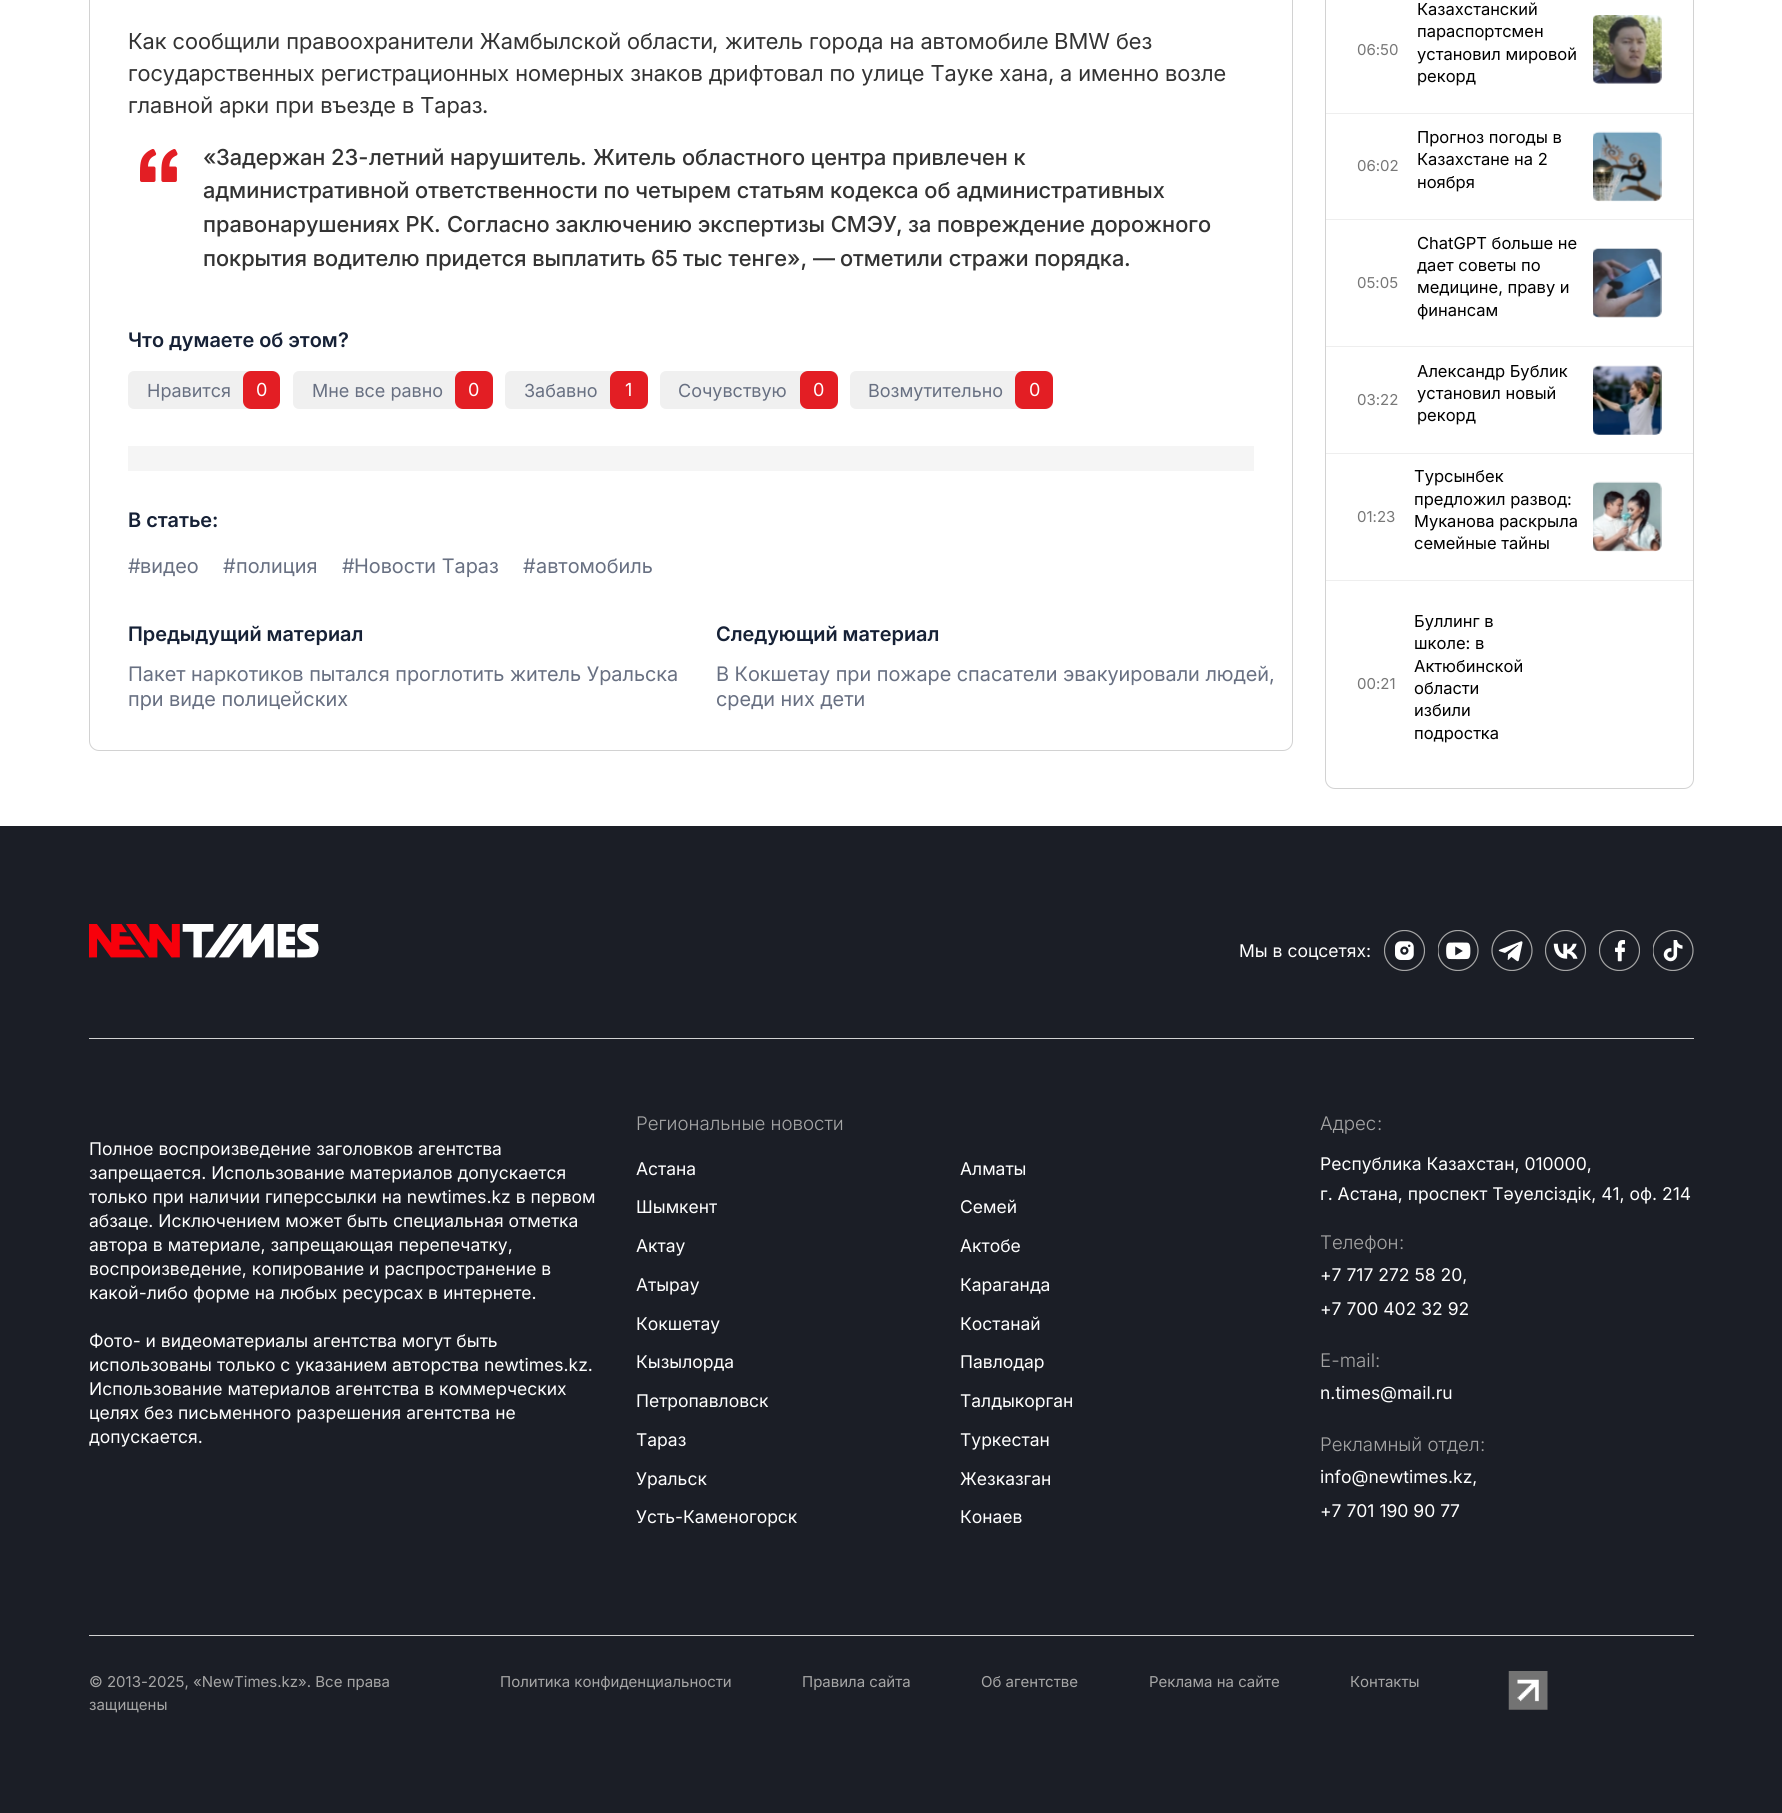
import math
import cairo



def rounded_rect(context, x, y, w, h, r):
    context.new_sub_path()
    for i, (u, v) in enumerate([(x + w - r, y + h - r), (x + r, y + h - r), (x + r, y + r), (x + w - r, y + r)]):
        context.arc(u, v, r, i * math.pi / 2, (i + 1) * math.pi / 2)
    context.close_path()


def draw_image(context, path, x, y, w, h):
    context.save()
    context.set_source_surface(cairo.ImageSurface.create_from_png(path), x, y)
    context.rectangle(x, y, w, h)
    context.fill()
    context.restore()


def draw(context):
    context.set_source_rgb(1, 1, 1)
    context.paint()
    rounded_rect(context, 89.5, -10.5, 1203, 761, 9.5)
    context.set_source_rgb(210 / 255, 210 / 255, 210 / 255)
    context.set_line_width(1)
    context.stroke()
    draw_image(context, "images/1.png", 140, 149, 38, 33)
    context.set_source_rgb(240 / 255, 240 / 255, 240 / 255)
    rounded_rect(context, 128, 371, 152, 38, 6)
    context.fill()
    context.set_source_rgb(227 / 255, 30 / 255, 36 / 255)
    rounded_rect(context, 243, 371, 37, 38, 8)
    context.fill()
    context.set_source_rgb(240 / 255, 240 / 255, 240 / 255)
    rounded_rect(context, 293, 371, 200, 38, 6)
    context.fill()
    context.set_source_rgb(227 / 255, 30 / 255, 36 / 255)
    rounded_rect(context, 455, 371, 38, 38, 8)
    context.fill()
    context.set_source_rgb(240 / 255, 240 / 255, 240 / 255)
    rounded_rect(context, 505, 371, 143, 38, 6)
    context.fill()
    context.set_source_rgb(227 / 255, 30 / 255, 36 / 255)
    rounded_rect(context, 610, 371, 38, 38, 8)
    context.fill()
    context.set_source_rgb(240 / 255, 240 / 255, 240 / 255)
    rounded_rect(context, 660, 371, 178, 38, 6)
    context.fill()
    context.set_source_rgb(227 / 255, 30 / 255, 36 / 255)
    rounded_rect(context, 800, 371, 38, 38, 8)
    context.fill()
    context.set_source_rgb(240 / 255, 240 / 255, 240 / 255)
    rounded_rect(context, 850, 371, 203, 38, 6)
    context.fill()
    context.set_source_rgb(227 / 255, 30 / 255, 36 / 255)
    rounded_rect(context, 1015, 371, 38, 38, 8)
    context.fill()
    context.set_source_rgb(245 / 255, 245 / 255, 245 / 255)
    context.rectangle(128, 446, 1126, 25)
    context.fill()
    rounded_rect(context, 1325.5, -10.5, 368, 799, 9.5)
    context.set_source_rgb(210 / 255, 210 / 255, 210 / 255)
    context.stroke()
    context.set_source_rgb(238 / 255, 238 / 255, 238 / 255)
    context.rectangle(1326, 113, 367, 1)
    context.fill()
    draw_image(context, "images/2.png", 1593, 15, 69, 69)
    context.rectangle(1326, 219, 367, 1)
    context.fill()
    draw_image(context, "images/3.png", 1593, 131, 69, 71)
    context.rectangle(1326, 346, 367, 1)
    context.fill()
    draw_image(context, "images/4.png", 1593, 248, 69, 70)
    context.rectangle(1326, 453, 367, 1)
    context.fill()
    draw_image(context, "images/5.png", 1593, 365, 69, 70)
    context.rectangle(1326, 580, 367, 1)
    context.fill()
    draw_image(context, "images/6.png", 1593, 481, 69, 71)
    context.set_source_rgb(27 / 255, 30 / 255, 38 / 255)
    context.rectangle(0, 826, 1782, 987)
    context.fill()
    context.set_source_rgb(210 / 255, 210 / 255, 210 / 255)
    context.rectangle(89, 1038, 1605, 1)
    context.fill()
    draw_image(context, "images/7.png", 89, 924, 230, 34)
    draw_image(context, "images/8.png", 1384, 930, 41, 41)
    draw_image(context, "images/9.png", 1438, 930, 41, 41)
    draw_image(context, "images/10.png", 1491, 930, 42, 41)
    draw_image(context, "images/11.png", 1545, 930, 41, 41)
    draw_image(context, "images/12.png", 1599, 930, 41, 41)
    draw_image(context, "images/13.png", 1653, 930, 41, 41)
    context.rectangle(89, 1635, 1605, 1)
    context.fill()
    draw_image(context, "images/14.png", 1508, 1671, 40, 39)
    context.select_font_face("Inter")
    context.set_font_size(22)
    context.set_source_rgb(51 / 255, 51 / 255, 51 / 255)
    context.move_to(128, 49)
    context.show_text("Как сообщили правоохранители Жамбылской области")
    context.select_font_face("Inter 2")
    context.move_to(712, 49)
    context.show_text(",")
    context.select_font_face("Inter")
    context.move_to(725, 49)
    context.show_text("житель города на автомобиле")
    context.select_font_face("Inter 2")
    context.move_to(1054, 49)
    context.show_text("BMW")
    context.select_font_face("Inter")
    context.move_to(1116, 49)
    context.show_text("без")
    context.move_to(128, 81)
    context.show_text("государственных регистрационных номерных знаков дрифтовал по улице Тауке хана")
    context.select_font_face("Inter 2")
    context.move_to(1048, 81)
    context.show_text(",")
    context.select_font_face("Inter")
    context.move_to(1060, 81)
    context.show_text("а именно возле")
    context.move_to(128, 113)
    context.show_text("главной арки при въезде в Тараз")
    context.select_font_face("Inter 2")
    context.move_to(482, 113)
    context.show_text(".")
    context.select_font_face("Inter Medium")
    context.move_to(203, 165)
    context.show_text("«")
    context.select_font_face("Inter 2 Medium")
    context.move_to(216, 165)
    context.show_text("Задержан")
    context.select_font_face("Inter Medium")
    context.move_to(331, 165)
    context.show_text("23-")
    context.select_font_face("Inter 2 Medium")
    context.move_to(369, 165)
    context.show_text("летний нарушитель")
    context.select_font_face("Inter Medium")
    context.move_to(580, 165)
    context.show_text(".")
    context.select_font_face("Inter 2 Medium")
    context.move_to(593, 165)
    context.show_text("Житель областного центра привлечен к")
    context.move_to(203, 198)
    context.show_text("административной ответственности по четырем статьям кодекса об административных")
    context.move_to(203, 232)
    context.show_text("правонарушениях РК")
    context.select_font_face("Inter Medium")
    context.move_to(434, 232)
    context.show_text(".")
    context.select_font_face("Inter 2 Medium")
    context.move_to(447, 232)
    context.show_text("Согласно заключению экспертизы СМЭУ")
    context.select_font_face("Inter Medium")
    context.move_to(896, 232)
    context.show_text(",")
    context.select_font_face("Inter 2 Medium")
    context.move_to(908, 232)
    context.show_text("за повреждение дорожного")
    context.move_to(203, 266)
    context.show_text("покрытия водителю придется выплатить")
    context.select_font_face("Inter Medium")
    context.move_to(651, 266)
    context.show_text("65")
    context.select_font_face("Inter 2 Medium")
    context.move_to(683, 266)
    context.show_text("тыс тенге")
    context.select_font_face("Inter Medium")
    context.move_to(787, 266)
    context.show_text("», —")
    context.select_font_face("Inter 2 Medium")
    context.move_to(840, 266)
    context.show_text("отметили стражи порядка")
    context.select_font_face("Inter Medium")
    context.move_to(1124, 266)
    context.show_text(".")
    context.select_font_face("Inter SemiBold")
    context.set_font_size(20)
    context.set_source_rgb(22 / 255, 33 / 255, 54 / 255)
    context.move_to(128, 347)
    context.show_text("Что думаете об этом")
    context.select_font_face("Inter 2 SemiBold")
    context.move_to(338, 347)
    context.show_text("?")
    context.select_font_face("Inter 2")
    context.set_font_size(18)
    context.set_source_rgb(104 / 255, 112 / 255, 130 / 255)
    context.move_to(147, 397)
    context.show_text("Нравится")
    context.set_source_rgb(1, 1, 1)
    context.move_to(256, 396)
    context.show_text("0")
    context.set_source_rgb(104 / 255, 112 / 255, 130 / 255)
    context.move_to(312, 397)
    context.show_text("Мне все равно")
    context.set_source_rgb(1, 1, 1)
    context.move_to(468, 396)
    context.show_text("0")
    context.set_source_rgb(104 / 255, 112 / 255, 130 / 255)
    context.move_to(524, 397)
    context.show_text("Забавно")
    context.set_source_rgb(1, 1, 1)
    context.move_to(625, 396)
    context.show_text("1")
    context.set_source_rgb(104 / 255, 112 / 255, 130 / 255)
    context.move_to(678, 397)
    context.show_text("Сочувствую")
    context.set_source_rgb(1, 1, 1)
    context.move_to(813, 396)
    context.show_text("0")
    context.set_source_rgb(104 / 255, 112 / 255, 130 / 255)
    context.move_to(868, 397)
    context.show_text("Возмутительно")
    context.set_source_rgb(1, 1, 1)
    context.move_to(1029, 396)
    context.show_text("0")
    context.select_font_face("Inter SemiBold")
    context.set_font_size(20)
    context.set_source_rgb(22 / 255, 33 / 255, 54 / 255)
    context.move_to(128, 527)
    context.show_text("В статье")
    context.select_font_face("Inter 2 SemiBold")
    context.move_to(212, 527)
    context.show_text(":")
    context.select_font_face("Inter 2")
    context.set_source_rgb(104 / 255, 112 / 255, 130 / 255)
    context.move_to(128, 573)
    context.show_text("#")
    context.select_font_face("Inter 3")
    context.move_to(140, 573)
    context.show_text("видео")
    context.select_font_face("Inter 2")
    context.move_to(223, 573)
    context.show_text("#")
    context.select_font_face("Inter 3")
    context.move_to(236, 573)
    context.show_text("полиция")
    context.select_font_face("Inter 2")
    context.move_to(342, 573)
    context.show_text("#")
    context.select_font_face("Inter 3")
    context.move_to(354, 573)
    context.show_text("Новости Тараз")
    context.select_font_face("Inter 2")
    context.move_to(523, 573)
    context.show_text("#")
    context.select_font_face("Inter 3")
    context.move_to(536, 573)
    context.show_text("автомобиль")
    context.select_font_face("Inter SemiBold")
    context.set_source_rgb(22 / 255, 33 / 255, 54 / 255)
    context.move_to(128, 641)
    context.show_text("Предыдущий материал")
    context.select_font_face("Inter 3")
    context.set_source_rgb(104 / 255, 112 / 255, 130 / 255)
    context.move_to(128, 681)
    context.show_text("Пакет наркотиков пытался проглотить житель Уральска")
    context.move_to(128, 706)
    context.show_text("при виде полицейских")
    context.select_font_face("Inter SemiBold")
    context.set_source_rgb(22 / 255, 33 / 255, 54 / 255)
    context.move_to(716, 641)
    context.show_text("Следующий материал")
    context.select_font_face("Inter 3")
    context.set_source_rgb(104 / 255, 112 / 255, 130 / 255)
    context.move_to(716, 681)
    context.show_text("В Кокшетау при пожаре спасатели эвакуировали людей")
    context.select_font_face("Inter 2")
    context.move_to(1269, 681)
    context.show_text(",")
    context.select_font_face("Inter 3")
    context.move_to(716, 706)
    context.show_text("среди них дети")
    context.select_font_face("Inter 2")
    context.set_font_size(15)
    context.set_source_rgb(119 / 255, 119 / 255, 119 / 255)
    context.move_to(1357, 55)
    context.show_text("06:50")
    context.set_font_size(16.5)
    context.set_source_rgb(0, 0, 0)
    context.move_to(1417, 15)
    context.show_text("Казахстанский")
    context.move_to(1417, 37)
    context.show_text("параспортсмен")
    context.move_to(1417, 60)
    context.show_text("установил мировой")
    context.move_to(1417, 82)
    context.show_text("рекорд")
    context.set_font_size(15)
    context.set_source_rgb(119 / 255, 119 / 255, 119 / 255)
    context.move_to(1357, 171)
    context.show_text("06:02")
    context.set_font_size(16.5)
    context.set_source_rgb(0, 0, 0)
    context.move_to(1417, 143)
    context.show_text("Прогноз погоды в")
    context.move_to(1417, 165)
    context.show_text("Казахстане на 2")
    context.move_to(1417, 188)
    context.show_text("ноября")
    context.set_font_size(15)
    context.set_source_rgb(119 / 255, 119 / 255, 119 / 255)
    context.move_to(1357, 288)
    context.show_text("05:05")
    context.set_font_size(16.5)
    context.set_source_rgb(0, 0, 0)
    context.move_to(1417, 249)
    context.show_text("ChatGPT больше не")
    context.move_to(1417, 271)
    context.show_text("дает советы по")
    context.move_to(1417, 293)
    context.show_text("медицине, праву и")
    context.move_to(1417, 316)
    context.show_text("финансам")
    context.set_font_size(15)
    context.set_source_rgb(119 / 255, 119 / 255, 119 / 255)
    context.move_to(1357, 405)
    context.show_text("03:22")
    context.set_font_size(16.5)
    context.set_source_rgb(0, 0, 0)
    context.move_to(1417, 377)
    context.show_text("Александр Бублик")
    context.move_to(1417, 399)
    context.show_text("установил новый")
    context.move_to(1417, 421)
    context.show_text("рекорд")
    context.set_font_size(15)
    context.set_source_rgb(119 / 255, 119 / 255, 119 / 255)
    context.move_to(1357, 522)
    context.show_text("01:23")
    context.set_font_size(16.5)
    context.set_source_rgb(0, 0, 0)
    context.move_to(1414, 482)
    context.show_text("Турсынбек")
    context.move_to(1414, 505)
    context.show_text("предложил развод:")
    context.move_to(1414, 527)
    context.show_text("Муканова раскрыла")
    context.move_to(1414, 549)
    context.show_text("семейные тайны")
    context.set_font_size(15)
    context.set_source_rgb(119 / 255, 119 / 255, 119 / 255)
    context.move_to(1357, 689)
    context.show_text("00:21")
    context.set_font_size(16.5)
    context.set_source_rgb(0, 0, 0)
    context.move_to(1414, 627)
    context.show_text("Буллинг в")
    context.move_to(1414, 649)
    context.show_text("школе: в")
    context.move_to(1414, 672)
    context.show_text("Актюбинской")
    context.move_to(1414, 694)
    context.show_text("области")
    context.move_to(1414, 716)
    context.show_text("избили")
    context.move_to(1414, 739)
    context.show_text("подростка")
    context.set_font_size(17.5)
    context.set_source_rgb(1, 1, 1)
    context.move_to(1239, 957)
    context.show_text("Мы в соцсетях:")
    context.move_to(89, 1155)
    context.show_text("Полное воспроизведение заголовков агентства")
    context.move_to(89, 1179)
    context.show_text("запрещается. Использование материалов допускается")
    context.move_to(89, 1203)
    context.show_text("только при наличии гиперссылки на newtimes.kz в первом")
    context.move_to(89, 1227)
    context.show_text("абзаце. Исключением может быть специальная отметка")
    context.move_to(89, 1251)
    context.show_text("автора в материале, запрещающая перепечатку,")
    context.move_to(89, 1275)
    context.show_text("воспроизведение, копирование и распространение в")
    context.move_to(89, 1299)
    context.show_text("какой-либо форме на любых ресурсах в интернете.")
    context.move_to(89, 1347)
    context.show_text("Фото- и видеоматериалы агентства могут быть")
    context.move_to(89, 1371)
    context.show_text("использованы только с указанием авторства newtimes.kz.")
    context.move_to(89, 1395)
    context.show_text("Использование материалов агентства в коммерческих")
    context.move_to(89, 1419)
    context.show_text("целях без письменного разрешения агентства не")
    context.move_to(89, 1443)
    context.show_text("допускается.")
    context.select_font_face("Inter Light")
    context.set_font_size(18.75)
    context.set_source_rgb(166 / 255, 166 / 255, 166 / 255)
    context.move_to(636, 1130)
    context.show_text("Региональные новости")
    context.select_font_face("Inter 2")
    context.set_font_size(17.5)
    context.set_source_rgb(1, 1, 1)
    context.move_to(636, 1175)
    context.show_text("Астана")
    context.move_to(960, 1175)
    context.show_text("Алматы")
    context.move_to(636, 1213)
    context.show_text("Шымкент")
    context.move_to(960, 1213)
    context.show_text("Семей")
    context.move_to(636, 1252)
    context.show_text("Актау")
    context.move_to(960, 1252)
    context.show_text("Актобе")
    context.move_to(636, 1291)
    context.show_text("Атырау")
    context.move_to(960, 1291)
    context.show_text("Караганда")
    context.move_to(636, 1330)
    context.show_text("Кокшетау")
    context.move_to(960, 1330)
    context.show_text("Костанай")
    context.move_to(636, 1368)
    context.show_text("Кызылорда")
    context.move_to(960, 1368)
    context.show_text("Павлодар")
    context.move_to(636, 1407)
    context.show_text("Петропавловск")
    context.move_to(960, 1407)
    context.show_text("Талдыкорган")
    context.move_to(636, 1446)
    context.show_text("Тараз")
    context.move_to(960, 1446)
    context.show_text("Туркестан")
    context.move_to(636, 1485)
    context.show_text("Уральск")
    context.move_to(960, 1485)
    context.show_text("Жезказган")
    context.move_to(636, 1523)
    context.show_text("Усть-Каменогорск")
    context.move_to(960, 1523)
    context.show_text("Конаев")
    context.select_font_face("Inter Light")
    context.set_font_size(18.75)
    context.set_source_rgb(166 / 255, 166 / 255, 166 / 255)
    context.move_to(1320, 1130)
    context.show_text("Адрес")
    context.select_font_face("Inter 2 Light")
    context.move_to(1377, 1130)
    context.show_text(":")
    context.select_font_face("Inter 2")
    context.set_font_size(17.5)
    context.set_source_rgb(1, 1, 1)
    context.move_to(1320, 1170)
    context.show_text("Республика Казахстан, 010000,")
    context.move_to(1320, 1200)
    context.show_text("г. Астана, проспект Тәуелсіздік, 41, оф. 214")
    context.select_font_face("Inter Light")
    context.set_font_size(18.75)
    context.set_source_rgb(166 / 255, 166 / 255, 166 / 255)
    context.move_to(1320, 1249)
    context.show_text("Телефон")
    context.select_font_face("Inter 2 Light")
    context.move_to(1399, 1249)
    context.show_text(":")
    context.select_font_face("Inter 2")
    context.set_font_size(17.5)
    context.set_source_rgb(1, 1, 1)
    context.move_to(1320, 1281)
    context.show_text("+7 717 272 58 20,")
    context.move_to(1320, 1315)
    context.show_text("+7 700 402 32 92")
    context.select_font_face("Inter 2 Light")
    context.set_font_size(18.75)
    context.set_source_rgb(166 / 255, 166 / 255, 166 / 255)
    context.move_to(1320, 1367)
    context.show_text("E-mail:")
    context.select_font_face("Inter 2")
    context.set_font_size(17.5)
    context.set_source_rgb(1, 1, 1)
    context.move_to(1320, 1399)
    context.show_text("n.times@mail.ru")
    context.select_font_face("Inter Light")
    context.set_font_size(18.75)
    context.set_source_rgb(166 / 255, 166 / 255, 166 / 255)
    context.move_to(1320, 1451)
    context.show_text("Рекламный отдел")
    context.select_font_face("Inter 2 Light")
    context.move_to(1480, 1451)
    context.show_text(":")
    context.select_font_face("Inter 2")
    context.set_font_size(17.5)
    context.set_source_rgb(1, 1, 1)
    context.move_to(1320, 1483)
    context.show_text("info@newtimes.kz,")
    context.move_to(1320, 1517)
    context.show_text("+7 701 190 90 77")
    context.set_font_size(15)
    context.set_source_rgb(166 / 255, 166 / 255, 166 / 255)
    context.move_to(89, 1687)
    context.show_text("© 2013-2025, «NewTimes.kz». Все права")
    context.move_to(89, 1710)
    context.show_text("защищены")
    context.move_to(500, 1687)
    context.show_text("Политика конфиденциальности")
    context.move_to(802, 1687)
    context.show_text("Правила сайта")
    context.move_to(981, 1687)
    context.show_text("Об агентстве")
    context.move_to(1149, 1687)
    context.show_text("Реклама на сайте")
    context.move_to(1350, 1687)
    context.show_text("Контакты")


surface = cairo.ImageSurface(cairo.Format.RGB24, 1782, 1813)
context = cairo.Context(surface)
options = cairo.FontOptions()
options.set_hint_metrics(cairo.HintMetrics.OFF)
options.set_hint_style(cairo.HintStyle.NONE)
context.set_font_options(options)
context.set_miter_limit(4)
draw(context)
surface.write_to_png("out.png")
